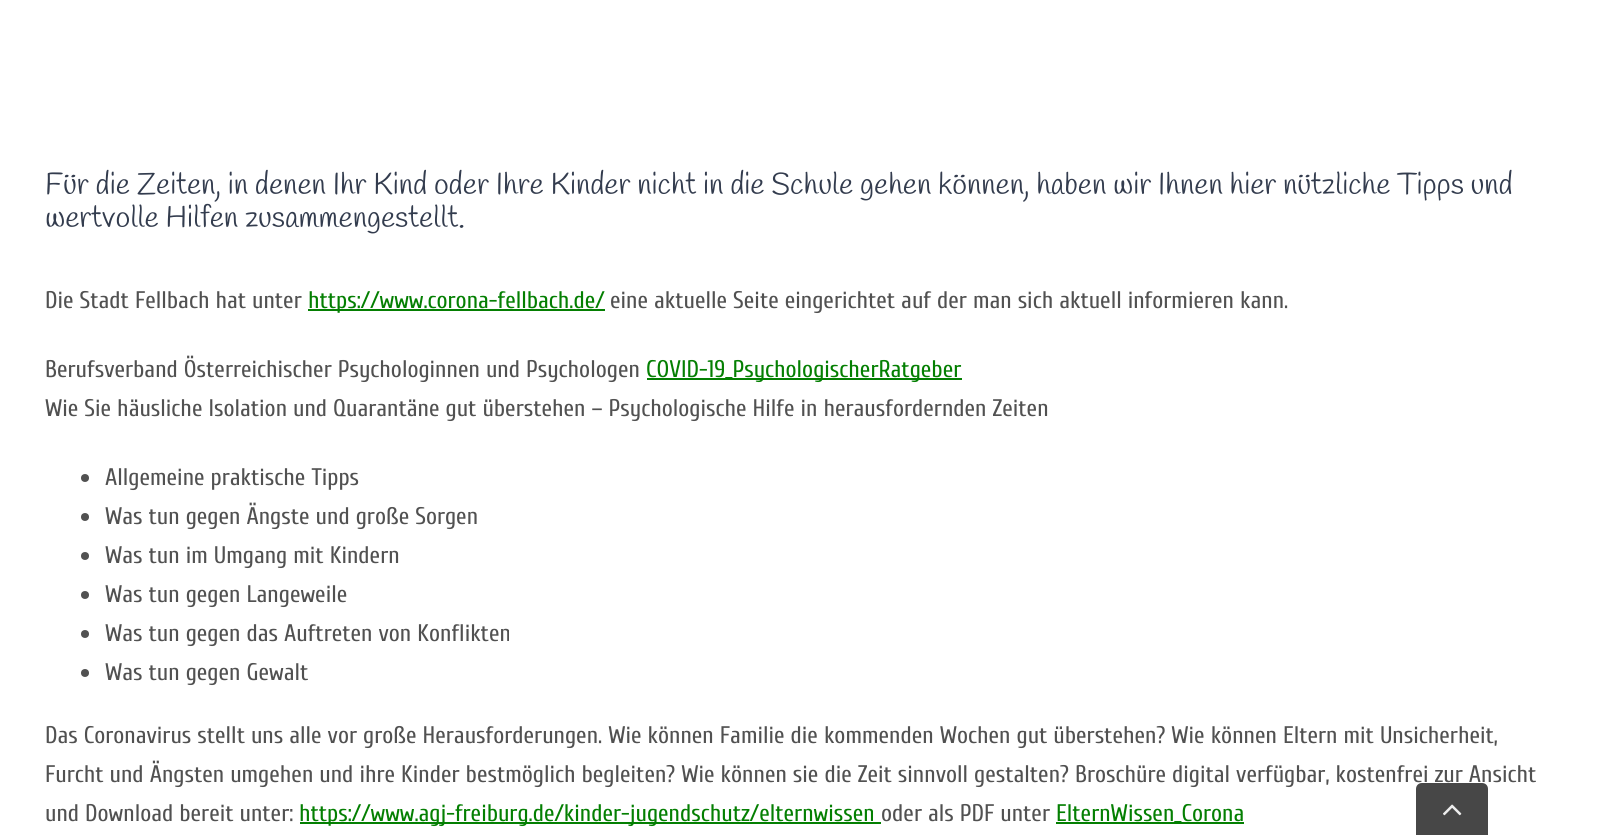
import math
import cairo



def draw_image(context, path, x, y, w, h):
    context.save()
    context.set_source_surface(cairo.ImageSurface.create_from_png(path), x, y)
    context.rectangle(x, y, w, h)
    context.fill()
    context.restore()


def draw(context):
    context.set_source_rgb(1, 1, 1)
    context.paint()
    context.set_source_rgb(4 / 255, 127 / 255, 2 / 255)
    context.rectangle(308, 309, 297, 2)
    context.fill()
    context.rectangle(647, 378, 315, 2)
    context.fill()
    context.set_source_rgb(81 / 255, 81 / 255, 81 / 255)
    context.arc(85, 478, 4, 0, 2 * math.pi)
    context.fill()
    context.arc(85, 517, 4, 0, 2 * math.pi)
    context.fill()
    context.arc(85, 556, 4, 0, 2 * math.pi)
    context.fill()
    context.arc(85, 595, 4, 0, 2 * math.pi)
    context.fill()
    context.arc(85, 634, 4, 0, 2 * math.pi)
    context.fill()
    context.arc(85, 673, 4, 0, 2 * math.pi)
    context.fill()
    context.set_source_rgb(4 / 255, 127 / 255, 2 / 255)
    context.rectangle(300, 822, 581, 2)
    context.fill()
    context.rectangle(1056, 822, 188, 2)
    context.fill()
    context.select_font_face("Handlee")
    context.set_font_size(30)
    context.set_source_rgb(51 / 255, 60 / 255, 78 / 255)
    context.move_to(45, 194)
    context.show_text("Für die Zeiten, in denen Ihr Kind oder Ihre Kinder nicht in die Schule gehen können, haben wir Ihnen hier nützliche Tipps und")
    context.move_to(45, 227)
    context.show_text("wertvolle Hilfen zusammengestellt.")
    context.select_font_face("Cuprum")
    context.set_font_size(24)
    context.set_source_rgb(81 / 255, 81 / 255, 81 / 255)
    context.move_to(45, 308)
    context.show_text("Die Stadt Fellbach hat unter")
    context.set_source_rgb(4 / 255, 127 / 255, 2 / 255)
    context.move_to(308, 308)
    context.show_text("https://www.corona-fellbach.de/")
    context.set_source_rgb(81 / 255, 81 / 255, 81 / 255)
    context.move_to(610, 308)
    context.show_text("eine aktuelle Seite eingerichtet auf der man sich aktuell informieren kann.")
    context.move_to(45, 377)
    context.show_text("Berufsverband Österreichischer Psychologinnen und Psychologen")
    context.set_source_rgb(4 / 255, 127 / 255, 2 / 255)
    context.move_to(646, 377)
    context.show_text("COVID-19_PsychologischerRatgeber")
    context.set_source_rgb(81 / 255, 81 / 255, 81 / 255)
    context.move_to(45, 416)
    context.show_text("Wie Sie häusliche Isolation und Quarantäne gut überstehen – Psychologische Hilfe in herausfordernden Zeiten")
    context.move_to(105, 485)
    context.show_text("Allgemeine praktische Tipps")
    context.move_to(105, 524)
    context.show_text("Was tun gegen Ängste und große Sorgen")
    context.move_to(105, 563)
    context.show_text("Was tun im Umgang mit Kindern")
    context.move_to(105, 602)
    context.show_text("Was tun gegen Langeweile")
    context.move_to(105, 641)
    context.show_text("Was tun gegen das Auftreten von Konflikten")
    context.move_to(105, 680)
    context.show_text("Was tun gegen Gewalt")
    context.move_to(45, 743)
    context.show_text("Das Coronavirus stellt uns alle vor große Herausforderungen. Wie können Familie die kommenden Wochen gut überstehen? Wie können Eltern mit Unsicherheit,")
    context.move_to(45, 782)
    context.show_text("Furcht und Ängsten umgehen und ihre Kinder bestmöglich begleiten? Wie können sie die Zeit sinnvoll gestalten? Broschüre digital verfügbar, kostenfrei zur Ansicht")
    context.move_to(45, 821)
    context.show_text("und Download bereit unter:")
    context.set_source_rgb(4 / 255, 127 / 255, 2 / 255)
    context.move_to(299, 821)
    context.show_text("https://www.agj-freiburg.de/kinder-jugendschutz/elternwissen")
    context.set_source_rgb(81 / 255, 81 / 255, 81 / 255)
    context.move_to(881, 821)
    context.show_text("oder als PDF unter")
    context.set_source_rgb(4 / 255, 127 / 255, 2 / 255)
    context.move_to(1056, 821)
    context.show_text("ElternWissen_Corona")
    context.set_source_rgb(71 / 255, 71 / 255, 71 / 255)
    context.new_path()
    context.move_to(1422, 783)
    context.line_to(1482, 783)
    context.curve_to(1485.5, 783, 1488, 785.5, 1488, 789)
    context.line_to(1488, 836)
    context.line_to(1416, 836)
    context.line_to(1416, 789)
    context.curve_to(1416, 785.5, 1418.5, 783, 1422, 783)
    context.close_path()
    context.fill()
    draw_image(context, "images/1.png", 1443, 804, 19, 12)


surface = cairo.ImageSurface(cairo.Format.RGB24, 1600, 835)
context = cairo.Context(surface)
options = cairo.FontOptions()
options.set_hint_metrics(cairo.HintMetrics.OFF)
options.set_hint_style(cairo.HintStyle.NONE)
context.set_font_options(options)
context.set_miter_limit(4)
draw(context)
surface.write_to_png("out.png")
